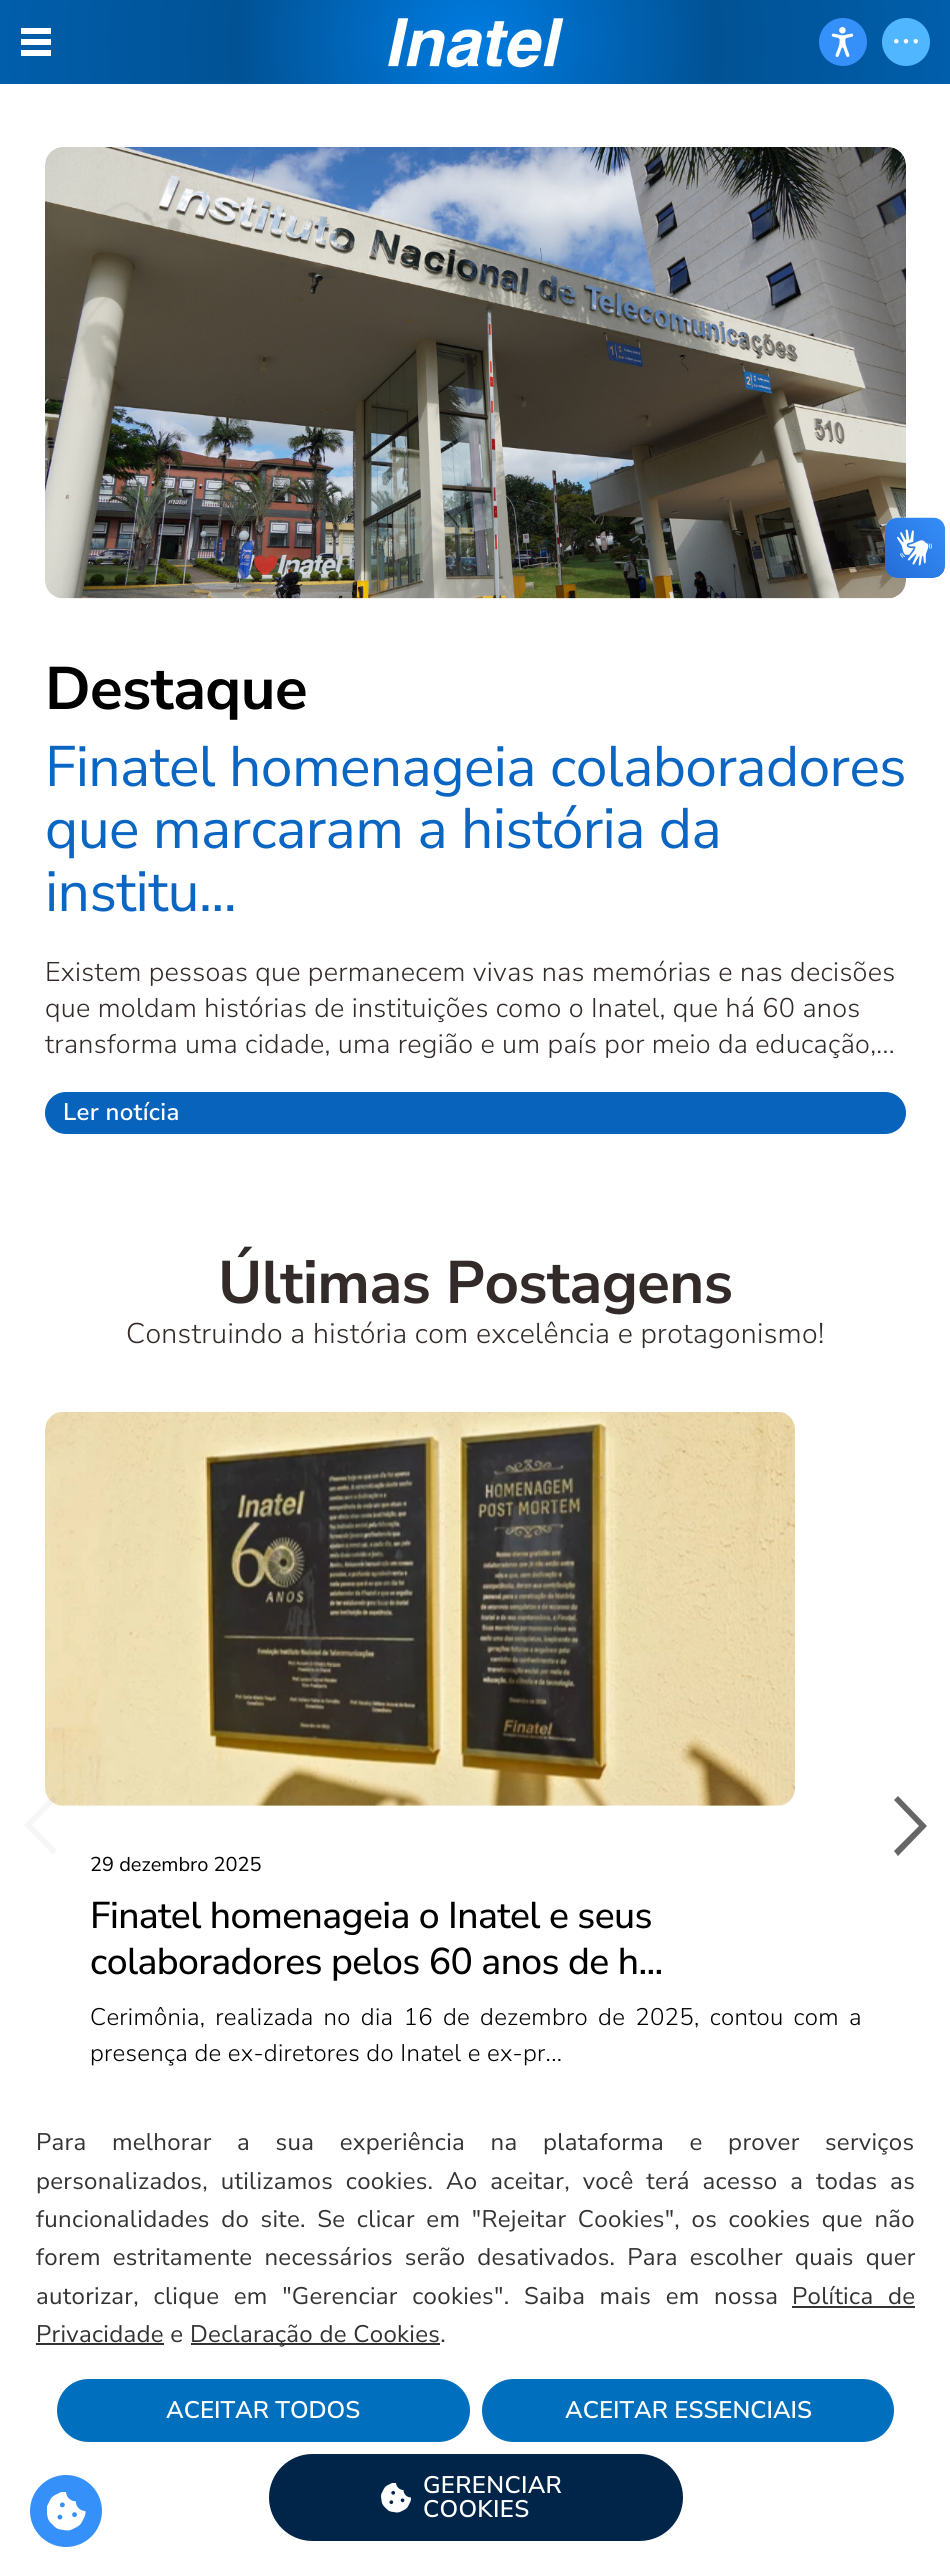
import math
import cairo



def draw_spaced(context, x, y, s, letter, word):
    context.move_to(x, y)
    for ch in s:
        context.show_text(ch)
        context.rel_move_to(letter + word * (ch == ' '), 0)


def rounded_rect(context, x, y, w, h, r):
    context.new_sub_path()
    for i, (u, v) in enumerate([(x + w - r, y + h - r), (x + r, y + h - r), (x + r, y + r), (x + w - r, y + r)]):
        context.arc(u, v, r, i * math.pi / 2, (i + 1) * math.pi / 2)
    context.close_path()


def draw_image(context, path, x, y, w, h):
    context.save()
    context.set_source_surface(cairo.ImageSurface.create_from_png(path), x, y)
    context.rectangle(x, y, w, h)
    context.fill()
    context.restore()


def draw(context):
    context.set_source_rgb(1, 1, 1)
    context.paint()
    gradient = cairo.RadialGradient(476, 42, 0, 476, 42, 477)
    gradient.add_color_stop_rgba(0, 0, 124 / 255, 225 / 255, 1)
    gradient.add_color_stop_rgba(0.5, 1 / 255, 82 / 255, 148 / 255, 1)
    gradient.add_color_stop_rgba(1, 1 / 255, 94 / 255, 171 / 255, 1)
    context.set_source(gradient)
    context.rectangle(0, 0, 950, 84)
    context.fill()
    context.set_source_rgb(1, 1, 1)
    context.rectangle(21, 28, 30, 6)
    context.fill()
    context.rectangle(21, 39, 30, 6)
    context.fill()
    context.rectangle(21, 50, 30, 6)
    context.fill()
    draw_image(context, "images/1.png", 388, 18, 176, 50)
    context.set_source_rgb(79 / 255, 182 / 255, 1)
    context.arc(906, 42, 24, 0, 2 * math.pi)
    context.fill()
    draw_image(context, "images/2.png", 894, 39, 24, 5)
    draw_image(context, "images/5.png", 45, 147, 861, 452)
    draw_image(context, "images/3.png", 885, 517, 60, 61)
    draw_image(context, "images/4.png", 885, 518, 60, 60)
    context.set_source_rgb(8 / 255, 99 / 255, 189 / 255)
    rounded_rect(context, 45, 1092, 861, 42, 21)
    context.fill()
    draw_image(context, "images/6.png", 45, 1412, 750, 394)
    context.set_source_rgba(102 / 255, 102 / 255, 102 / 255, 0.06)
    context.set_fill_rule(cairo.FillRule.EVEN_ODD)
    context.new_path()
    context.move_to(53, 1855)
    context.line_to(57, 1850)
    context.line_to(32, 1825)
    context.line_to(57, 1799)
    context.line_to(53, 1795)
    context.line_to(24, 1825)
    context.line_to(53, 1855)
    context.fill()
    context.set_source_rgb(102 / 255, 102 / 255, 102 / 255)
    context.new_path()
    context.move_to(898, 1796)
    context.line_to(894, 1800)
    context.line_to(919, 1826)
    context.line_to(894, 1851)
    context.line_to(898, 1856)
    context.line_to(927, 1826)
    context.line_to(898, 1796)
    context.fill()
    context.set_source_rgb(54 / 255, 144 / 255, 250 / 255)
    context.arc(843, 42, 24, 0, 2 * math.pi)
    context.fill()
    draw_image(context, "images/7.png", 831, 27, 23, 30)
    context.set_source_rgb(51 / 255, 51 / 255, 51 / 255)
    context.rectangle(792, 2306, 123, 2)
    context.fill()
    context.rectangle(36, 2343, 128, 2)
    context.fill()
    context.rectangle(191, 2343, 249, 2)
    context.fill()
    context.set_source_rgb(0, 111 / 255, 189 / 255)
    rounded_rect(context, 58, 2380, 411, 61, 30.5)
    context.fill_preserve()
    context.stroke()
    rounded_rect(context, 483, 2380, 410, 61, 30.5)
    context.fill_preserve()
    context.stroke()
    context.set_source_rgb(0, 37 / 255, 73 / 255)
    rounded_rect(context, 270, 2455, 412, 85, 42.5)
    context.fill_preserve()
    context.stroke()
    draw_image(context, "images/8.png", 381, 2483, 30, 30)
    context.set_source_rgb(54 / 255, 144 / 255, 250 / 255)
    context.arc(66, 2511, 36, 0, 2 * math.pi)
    context.fill()
    draw_image(context, "images/9.png", 47, 2492, 39, 39)
    context.select_font_face("Nunito Sans", cairo.FontSlant.NORMAL, cairo.FontWeight.BOLD)
    context.set_font_size(60)
    context.set_source_rgb(0, 0, 0)
    draw_spaced(context, 45, 709, "Destaque", -0.6, 0)
    context.select_font_face("Nunito Sans")
    context.set_font_size(57)
    context.set_source_rgb(10 / 255, 102 / 255, 194 / 255)
    draw_spaced(context, 45, 786, "Finatel homenageia colaboradores", -0.6, 0)
    draw_spaced(context, 45, 848, "que marcaram a história da", -0.6, 0)
    draw_spaced(context, 45, 911, "institu...", -0.6, 0)
    context.select_font_face("Nunito Sans Light")
    context.set_font_size(27)
    context.set_source_rgb(51 / 255, 43 / 255, 41 / 255)
    draw_spaced(context, 45, 981, "Existem pessoas que permanecem vivas nas memórias e nas decisões", 0.3, 0)
    draw_spaced(context, 45, 1017, "que moldam histórias de instituições como o Inatel, que há 60 anos", 0.3, 0)
    draw_spaced(context, 45, 1053, "transforma uma cidade, uma região e um país por meio da educação,...", 0.3, 0)
    context.select_font_face("Nunito Sans SemiBold")
    context.set_font_size(24)
    context.set_source_rgb(1, 1, 1)
    draw_spaced(context, 63, 1120, "Ler notícia", 0.3, 0)
    context.select_font_face("Nunito Sans", cairo.FontSlant.NORMAL, cairo.FontWeight.BOLD)
    context.set_font_size(60)
    context.set_source_rgb(51 / 255, 43 / 255, 41 / 255)
    draw_spaced(context, 218, 1303, "Últimas Postagens", -0.6, 0)
    context.select_font_face("Nunito Sans Light")
    context.set_font_size(28.5)
    draw_spaced(context, 126, 1343, "Construindo a história com excelência e protagonismo!", 0.3, 0)
    context.select_font_face("Nunito Sans")
    context.set_font_size(20)
    context.set_source_rgb(0, 0, 0)
    context.move_to(90, 1871)
    context.show_text("29 dezembro 2025")
    context.select_font_face("Nunito Sans Medium")
    context.set_font_size(37.25)
    draw_spaced(context, 90, 1928, "Finatel homenageia o Inatel e seus", -0.6, 0)
    draw_spaced(context, 90, 1974, "colaboradores pelos 60 anos de h...", -0.6, 0)
    context.select_font_face("Nunito Sans Light")
    context.set_font_size(24)
    draw_spaced(context, 90, 2025, "Cerimônia, realizada no dia 16 de dezembro de 2025, contou com a", 0.3, 3.75)
    draw_spaced(context, 90, 2061, "presença de ex-diretores do Inatel e ex-pr...", 0.3, 0)
    context.select_font_face("Nunito Sans")
    context.set_source_rgb(51 / 255, 51 / 255, 51 / 255)
    draw_spaced(context, 36, 2150, "Para melhorar a sua experiência na plataforma e prover serviços", 0.3, 19)
    draw_spaced(context, 36, 2189, "personalizados, utilizamos cookies. Ao aceitar, você terá acesso a todas as", 0.3, 6.25)
    draw_spaced(context, 36, 2227, "funcionalidades do site. Se clicar em \"Rejeitar Cookies\", os cookies que não", 0.3, 5)
    draw_spaced(context, 36, 2265, "forem estritamente necessários serão desativados. Para escolher quais quer", 0.3, 5.5)
    draw_spaced(context, 36, 2304, "autorizar, clique em \"Gerenciar cookies\". Saiba mais em nossa", 0.3, 8)
    draw_spaced(context, 792, 2304, "Política de", 0.3, 8)
    draw_spaced(context, 36, 2342, "Privacidade e", 0.3, 0)
    draw_spaced(context, 190, 2342, "Declaração de Cookies.", 0.3, 0)
    context.select_font_face("Nunito Sans SemiBold")
    context.set_source_rgb(1, 1, 1)
    context.move_to(166, 2418)
    context.show_text("ACEITAR TODOS")
    context.move_to(565, 2418)
    context.show_text("ACEITAR ESSENCIAIS")
    draw_spaced(context, 423, 2493, "GERENCIAR", 0.3, 0)
    draw_spaced(context, 423, 2517, "COOKIES", 0.3, 0)


surface = cairo.ImageSurface(cairo.Format.RGB24, 950, 2576)
context = cairo.Context(surface)
options = cairo.FontOptions()
options.set_hint_metrics(cairo.HintMetrics.OFF)
options.set_hint_style(cairo.HintStyle.NONE)
context.set_font_options(options)
context.set_miter_limit(4)
draw(context)
surface.write_to_png("out.png")
